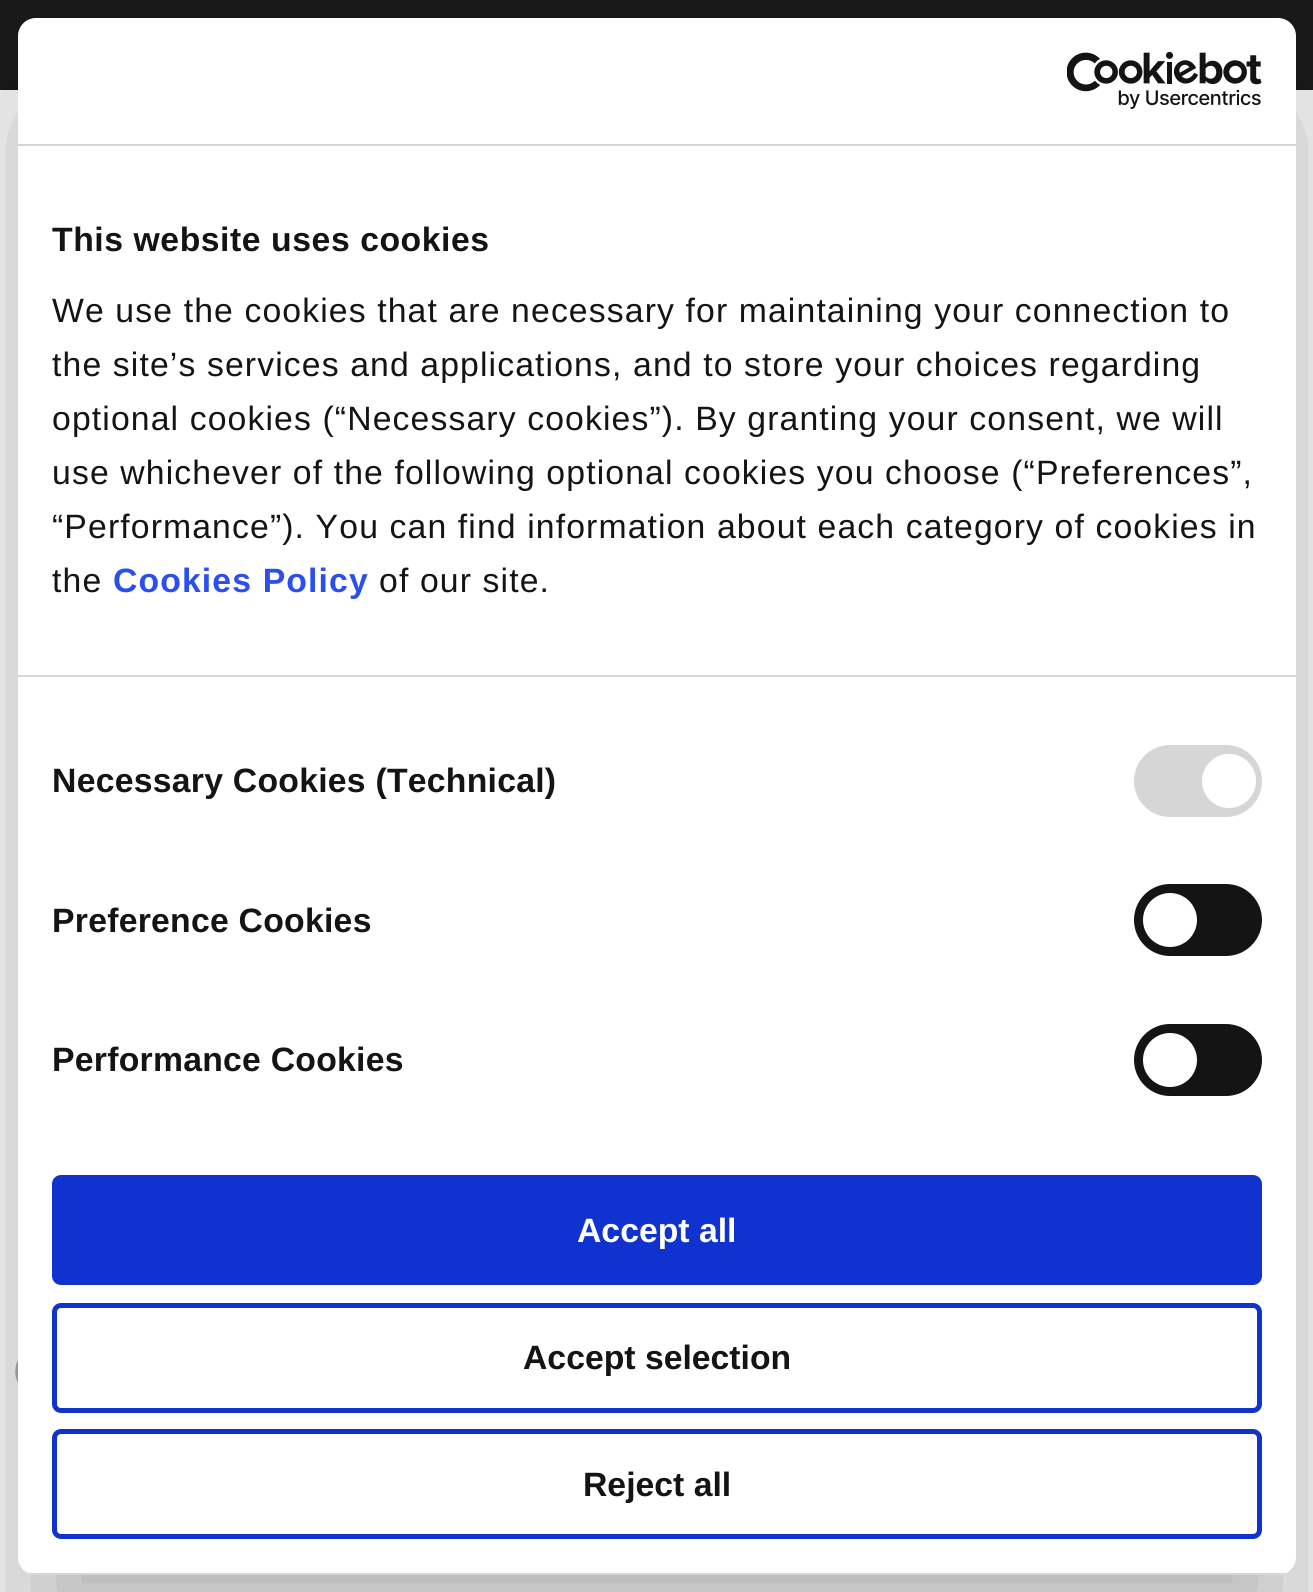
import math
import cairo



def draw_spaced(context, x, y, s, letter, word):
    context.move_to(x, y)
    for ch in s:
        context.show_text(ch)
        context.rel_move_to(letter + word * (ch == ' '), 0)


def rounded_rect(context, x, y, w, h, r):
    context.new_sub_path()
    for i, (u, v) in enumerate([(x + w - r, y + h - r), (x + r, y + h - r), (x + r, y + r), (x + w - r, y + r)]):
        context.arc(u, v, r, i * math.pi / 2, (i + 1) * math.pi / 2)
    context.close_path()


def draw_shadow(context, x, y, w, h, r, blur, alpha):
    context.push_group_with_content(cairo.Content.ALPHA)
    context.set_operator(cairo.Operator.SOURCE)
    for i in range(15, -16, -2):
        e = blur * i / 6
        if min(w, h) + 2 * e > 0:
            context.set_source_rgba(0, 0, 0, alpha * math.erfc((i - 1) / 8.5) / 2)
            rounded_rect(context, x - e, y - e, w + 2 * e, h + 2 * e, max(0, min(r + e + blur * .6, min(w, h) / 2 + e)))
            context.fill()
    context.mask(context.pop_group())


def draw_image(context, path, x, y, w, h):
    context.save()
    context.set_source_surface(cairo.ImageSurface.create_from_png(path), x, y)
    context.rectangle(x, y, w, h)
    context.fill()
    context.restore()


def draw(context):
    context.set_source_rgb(1, 1, 1)
    context.paint()
    context.set_source_rgb(26 / 255, 26 / 255, 26 / 255)
    context.rectangle(0, 0, 1313, 90)
    context.fill()
    draw_image(context, "images/1.png", 15, 1360, 3, 23)
    context.set_source_rgb(0, 0, 0)
    draw_shadow(context, 18, 90, 1278, 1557, 18, 76.5, 0.3)
    context.set_source_rgb(1, 1, 1)
    rounded_rect(context, 18, 18, 1278, 1557, 18)
    context.fill()
    context.set_source_rgb(214 / 255, 214 / 255, 214 / 255)
    context.rectangle(18, 144, 1278, 2)
    context.fill()
    draw_image(context, "images/2.png", 1067, 52, 195, 57)
    context.rectangle(18, 675, 1278, 2)
    context.fill()
    rounded_rect(context, 1134, 745, 128, 72, 36)
    context.fill()
    context.set_source_rgb(1, 1, 1)
    context.arc(1229, 781, 27, 0, 2 * math.pi)
    context.fill()
    context.set_source_rgb(20 / 255, 20 / 255, 20 / 255)
    rounded_rect(context, 1134, 884, 128, 72, 36)
    context.fill()
    context.set_source_rgb(1, 1, 1)
    context.arc(1170, 920, 27, 0, 2 * math.pi)
    context.fill()
    context.set_source_rgb(20 / 255, 20 / 255, 20 / 255)
    rounded_rect(context, 1134, 1024, 128, 72, 36)
    context.fill()
    context.set_source_rgb(1, 1, 1)
    context.arc(1170, 1060, 27, 0, 2 * math.pi)
    context.fill()
    context.save()
    rounded_rect(context, 18, 18, 1278, 1557, 18)
    context.clip()
    context.set_source_rgb(214 / 255, 214 / 255, 214 / 255)
    context.rectangle(28, 1573, 1258, 2)
    context.fill()
    context.restore()
    context.set_source_rgb(16 / 255, 50 / 255, 207 / 255)
    rounded_rect(context, 54.5, 1177.5, 1205, 105, 6.5)
    context.fill_preserve()
    context.set_line_width(5)
    context.stroke()
    rounded_rect(context, 54.5, 1305.5, 1205, 105, 6.5)
    context.stroke()
    rounded_rect(context, 54.5, 1431.5, 1205, 105, 6.5)
    context.stroke()
    context.select_font_face("Liberation Sans", cairo.FontSlant.NORMAL, cairo.FontWeight.BOLD)
    context.set_font_size(33.75)
    context.set_source_rgb(20 / 255, 20 / 255, 20 / 255)
    draw_spaced(context, 52, 251, "This website uses cookies", 0.55, 0)
    context.select_font_face("Liberation Sans")
    draw_spaced(context, 52, 322, "We use the cookies that are necessary for maintaining your connection to", 1.12, 0)
    draw_spaced(context, 52, 376, "the site’s services and applications, and to store your choices regarding", 1.12, 0)
    draw_spaced(context, 52, 430, "optional cookies (“Necessary cookies”). By granting your consent, we will", 1.12, 0)
    draw_spaced(context, 52, 484, "use whichever of the following optional cookies you choose (“Preferences”,", 1.12, 0)
    draw_spaced(context, 52, 538, "“Performance”). You can find information about each category of cookies in", 1.12, 0)
    draw_spaced(context, 52, 592, "the", 1.12, 0)
    context.select_font_face("Liberation Sans", cairo.FontSlant.NORMAL, cairo.FontWeight.BOLD)
    context.set_source_rgb(42 / 255, 78 / 255, 239 / 255)
    draw_spaced(context, 113, 592, "Cookies Policy", 1.12, 0)
    context.select_font_face("Liberation Sans")
    context.set_source_rgb(20 / 255, 20 / 255, 20 / 255)
    draw_spaced(context, 379, 592, "of our site.", 1.12, 0)
    context.select_font_face("Liberation Sans", cairo.FontSlant.NORMAL, cairo.FontWeight.BOLD)
    draw_spaced(context, 52, 792, "Necessary Cookies (Technical)", 0.25, 0)
    draw_spaced(context, 52, 932, "Preference Cookies", 0.25, 0)
    draw_spaced(context, 52, 1071, "Performance Cookies", 0.25, 0)
    context.set_source_rgb(1, 1, 1)
    context.move_to(577, 1242)
    context.show_text("Accept all")
    context.set_source_rgb(20 / 255, 20 / 255, 20 / 255)
    context.move_to(523, 1369)
    context.show_text("Accept selection")
    context.move_to(583, 1496)
    context.show_text("Reject all")


surface = cairo.ImageSurface(cairo.Format.RGB24, 1313, 1592)
context = cairo.Context(surface)
options = cairo.FontOptions()
options.set_hint_metrics(cairo.HintMetrics.OFF)
options.set_hint_style(cairo.HintStyle.NONE)
context.set_font_options(options)
context.set_miter_limit(4)
draw(context)
surface.write_to_png("out.png")
